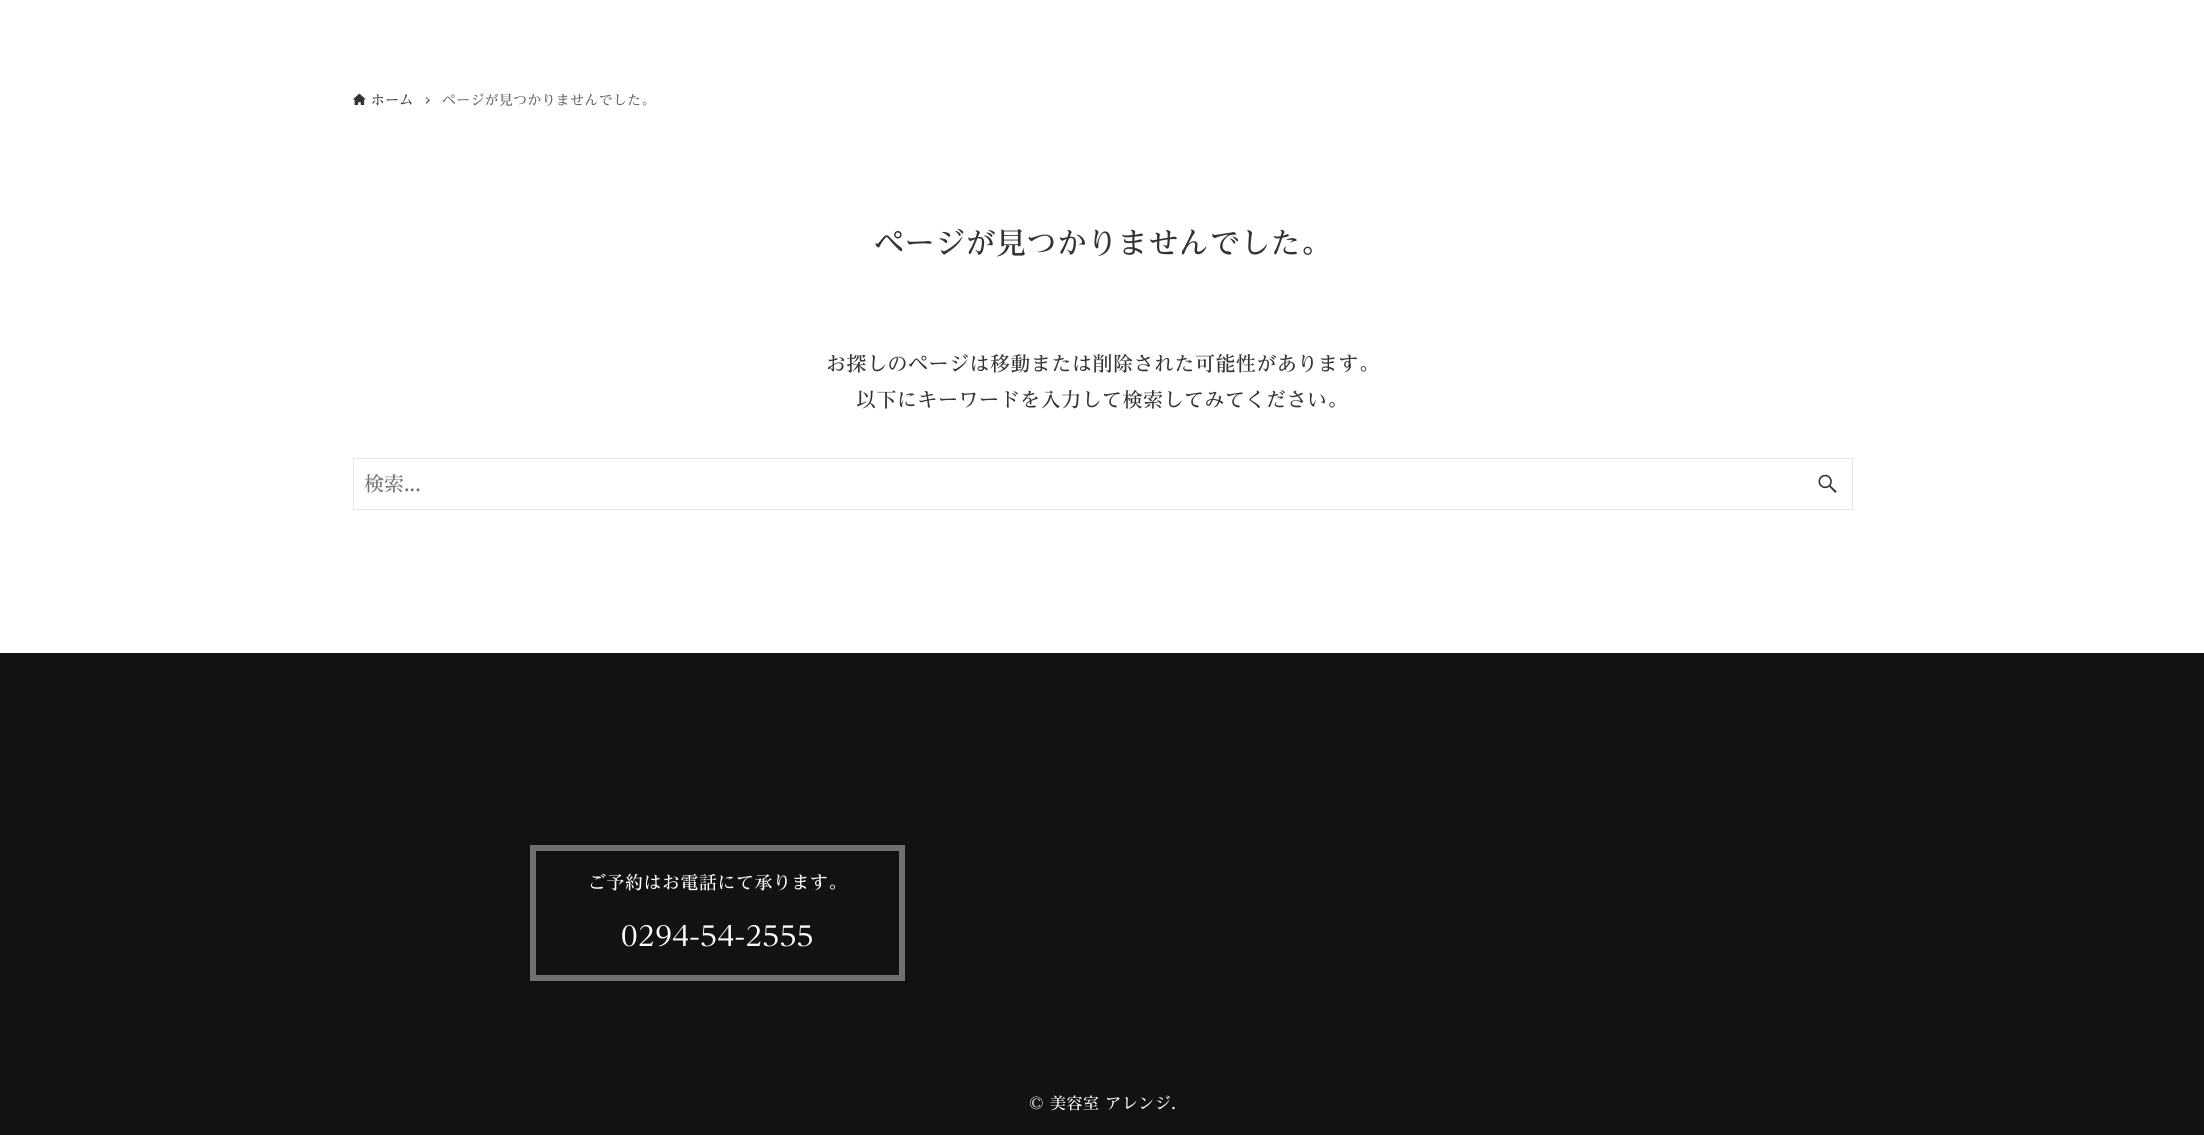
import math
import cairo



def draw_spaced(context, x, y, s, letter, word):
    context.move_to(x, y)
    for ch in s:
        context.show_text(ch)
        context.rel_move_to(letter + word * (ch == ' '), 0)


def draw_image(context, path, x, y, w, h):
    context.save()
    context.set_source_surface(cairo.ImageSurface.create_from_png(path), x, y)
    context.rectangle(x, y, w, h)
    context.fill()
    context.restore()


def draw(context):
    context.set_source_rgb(1, 1, 1)
    context.paint()
    draw_image(context, "images/1.png", 353, 93, 13, 12)
    context.set_source_rgb(102 / 255, 102 / 255, 102 / 255)
    context.new_path()
    context.move_to(426.5, 97)
    context.line_to(430, 100.5)
    context.line_to(429, 101)
    context.line_to(425.5, 97.5)
    context.close_path()
    context.fill()
    context.new_path()
    context.move_to(429, 99.5)
    context.line_to(430, 100.5)
    context.line_to(426.5, 104)
    context.line_to(425.5, 103)
    context.close_path()
    context.fill()
    context.rectangle(353.5, 458.5, 1499, 51)
    context.set_source_rgb(228 / 255, 228 / 255, 228 / 255)
    context.set_line_width(1)
    context.stroke()
    draw_image(context, "images/2.png", 1818, 474, 19, 19)
    context.set_source_rgb(19 / 255, 17 / 255, 17 / 255)
    context.rectangle(0, 653, 2204, 482)
    context.fill()
    context.rectangle(533, 848, 369, 130)
    context.set_source_rgb(112 / 255, 112 / 255, 112 / 255)
    context.set_line_width(6)
    context.stroke()
    context.select_font_face("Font")
    context.set_font_size(13.75)
    context.set_source_rgb(51 / 255, 51 / 255, 51 / 255)
    draw_spaced(context, 371, 105, "ホーム", 0.5, 0)
    context.set_source_rgb(102 / 255, 102 / 255, 102 / 255)
    draw_spaced(context, 442, 105, "ページが見つかりませんでした。", 0.5, 0)
    context.set_font_size(30)
    context.set_source_rgb(51 / 255, 51 / 255, 51 / 255)
    draw_spaced(context, 874, 254, "ページが見つかりませんでした。", 0.5, 0)
    context.set_font_size(20)
    draw_spaced(context, 826, 371, "お探しのページは移動または削除された可能性があります。", 0.5, 0)
    draw_spaced(context, 856, 407, "以下にキーワードを入力して検索してみてください。", 0.5, 0)
    context.set_source_rgb(117 / 255, 117 / 255, 117 / 255)
    context.move_to(364, 491)
    context.show_text("検索...")
    context.set_font_size(18)
    context.set_source_rgb(1, 1, 1)
    draw_spaced(context, 588, 889, "ご予約はお電話にて承ります。", 0.5, 0)
    context.set_font_size(27)
    draw_spaced(context, 621, 946, "0294-54-2555", 0.5, 0)
    context.set_font_size(16)
    draw_spaced(context, 1029, 1109, "© 美容室 アレンジ.", 0.5, 0)


surface = cairo.ImageSurface(cairo.Format.RGB24, 2204, 1135)
context = cairo.Context(surface)
options = cairo.FontOptions()
options.set_hint_metrics(cairo.HintMetrics.OFF)
options.set_hint_style(cairo.HintStyle.NONE)
context.set_font_options(options)
context.set_miter_limit(4)
draw(context)
surface.write_to_png("out.png")
